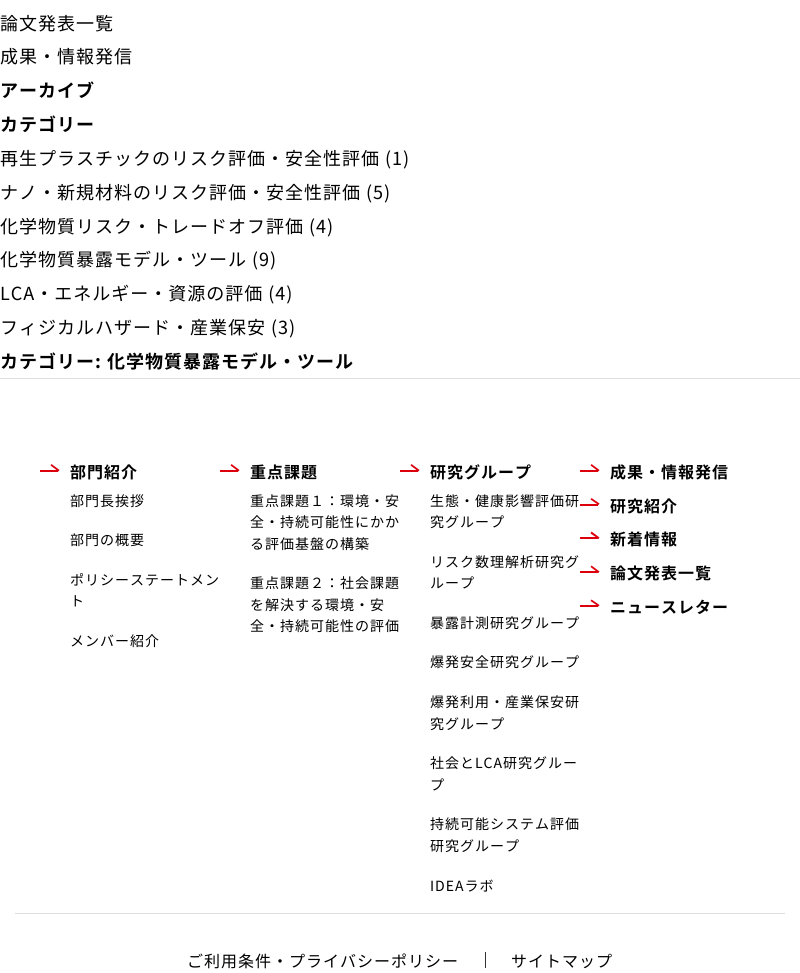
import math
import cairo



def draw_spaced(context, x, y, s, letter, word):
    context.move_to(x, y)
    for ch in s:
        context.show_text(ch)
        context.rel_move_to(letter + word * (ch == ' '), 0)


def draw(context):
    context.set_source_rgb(1, 1, 1)
    context.paint()
    context.set_source_rgb(222 / 255, 222 / 255, 222 / 255)
    context.rectangle(0, 378, 800, 1)
    context.fill()
    context.rectangle(15, 913, 770, 1)
    context.fill()
    context.set_source_rgb(220 / 255, 0, 12 / 255)
    context.rectangle(40, 470, 18, 2)
    context.fill()
    context.new_path()
    context.move_to(51.5, 464)
    context.line_to(59.5, 470)
    context.line_to(58.5, 471.5)
    context.line_to(50.5, 465.5)
    context.close_path()
    context.fill()
    context.rectangle(220, 470, 18, 2)
    context.fill()
    context.new_path()
    context.move_to(231.5, 464)
    context.line_to(239.5, 470)
    context.line_to(238.5, 471.5)
    context.line_to(230.5, 465.5)
    context.close_path()
    context.fill()
    context.rectangle(400, 470, 18, 2)
    context.fill()
    context.new_path()
    context.move_to(411.5, 464)
    context.line_to(419.5, 470)
    context.line_to(418.5, 471.5)
    context.line_to(410.5, 465.5)
    context.close_path()
    context.fill()
    context.rectangle(580, 470, 18, 2)
    context.fill()
    context.new_path()
    context.move_to(591.5, 464)
    context.line_to(599.5, 470)
    context.line_to(598.5, 471.5)
    context.line_to(590.5, 465.5)
    context.close_path()
    context.fill()
    context.rectangle(580, 504, 18, 2)
    context.fill()
    context.new_path()
    context.move_to(591.5, 498)
    context.line_to(599.5, 503.5)
    context.line_to(598.5, 505)
    context.line_to(590.5, 499.5)
    context.close_path()
    context.fill()
    context.rectangle(580, 537, 18, 2)
    context.fill()
    context.new_path()
    context.move_to(591.5, 531.5)
    context.line_to(599.5, 537.5)
    context.line_to(598.5, 539)
    context.line_to(590.5, 533.5)
    context.close_path()
    context.fill()
    context.rectangle(580, 571, 18, 2)
    context.fill()
    context.new_path()
    context.move_to(591.5, 565.5)
    context.line_to(599.5, 571.5)
    context.line_to(598.5, 573)
    context.line_to(590.5, 567)
    context.close_path()
    context.fill()
    context.rectangle(580, 605, 18, 2)
    context.fill()
    context.new_path()
    context.move_to(591.5, 599.5)
    context.line_to(599.5, 605)
    context.line_to(598.5, 606.5)
    context.line_to(590.5, 601)
    context.close_path()
    context.fill()
    context.set_source_rgb(51 / 255, 51 / 255, 51 / 255)
    context.rectangle(485, 952, 1, 16)
    context.fill()
    context.select_font_face("Noto Sans JP")
    context.set_font_size(18)
    context.set_source_rgb(0, 0, 0)
    draw_spaced(context, 0, 30, "論文発表一覧", 1, 0)
    draw_spaced(context, 0, 63, "成果・情報発信", 1, 0)
    context.select_font_face("Noto Sans JP", cairo.FontSlant.NORMAL, cairo.FontWeight.BOLD)
    draw_spaced(context, 0, 97, "アーカイブ", 1, 0)
    draw_spaced(context, 0, 131, "カテゴリー", 1, 0)
    context.select_font_face("Noto Sans JP")
    draw_spaced(context, 0, 165, "再生プラスチックのリスク評価・安全性評価 (1)", 1, 0)
    draw_spaced(context, 0, 199, "ナノ・新規材料のリスク評価・安全性評価 (5)", 1, 0)
    draw_spaced(context, 0, 233, "化学物質リスク・トレードオフ評価 (4)", 1, 0)
    draw_spaced(context, 0, 266, "化学物質暴露モデル・ツール (9)", 1, 0)
    draw_spaced(context, 0, 300, "LCA・エネルギー・資源の評価 (4)", 1, 0)
    draw_spaced(context, 0, 334, "フィジカルハザード・産業保安 (3)", 1, 0)
    context.select_font_face("Noto Sans JP", cairo.FontSlant.NORMAL, cairo.FontWeight.BOLD)
    draw_spaced(context, 0, 368, "カテゴリー: 化学物質暴露モデル・ツール", 1, 0)
    context.set_font_size(16)
    draw_spaced(context, 70, 478, "部門紹介", 1, 0)
    context.select_font_face("Noto Sans JP")
    context.set_font_size(14)
    draw_spaced(context, 70, 506, "部門長挨拶", 1, 0)
    draw_spaced(context, 70, 545, "部門の概要", 1, 0)
    draw_spaced(context, 70, 585, "ポリシーステートメン", 1, 0)
    draw_spaced(context, 70, 606, "ト", 1, 0)
    draw_spaced(context, 70, 646, "メンバー紹介", 1, 0)
    context.select_font_face("Noto Sans JP", cairo.FontSlant.NORMAL, cairo.FontWeight.BOLD)
    context.set_font_size(16)
    draw_spaced(context, 250, 478, "重点課題", 1, 0)
    context.select_font_face("Noto Sans JP")
    context.set_font_size(14)
    draw_spaced(context, 250, 506, "重点課題１：環境・安", 1, 0)
    draw_spaced(context, 250, 527, "全・持続可能性にかか", 1, 0)
    draw_spaced(context, 250, 549, "る評価基盤の構築", 1, 0)
    draw_spaced(context, 250, 588, "重点課題２：社会課題", 1, 0)
    draw_spaced(context, 250, 610, "を解決する環境・安", 1, 0)
    draw_spaced(context, 250, 631, "全・持続可能性の評価", 1, 0)
    context.select_font_face("Noto Sans JP", cairo.FontSlant.NORMAL, cairo.FontWeight.BOLD)
    context.set_font_size(16)
    draw_spaced(context, 430, 478, "研究グループ", 1, 0)
    context.select_font_face("Noto Sans JP")
    context.set_font_size(14)
    draw_spaced(context, 430, 506, "生態・健康影響評価研", 1, 0)
    draw_spaced(context, 430, 527, "究グループ", 1, 0)
    draw_spaced(context, 430, 567, "リスク数理解析研究グ", 1, 0)
    draw_spaced(context, 430, 588, "ループ", 1, 0)
    draw_spaced(context, 430, 628, "暴露計測研究グループ", 1, 0)
    draw_spaced(context, 430, 667, "爆発安全研究グループ", 1, 0)
    draw_spaced(context, 430, 707, "爆発利用・産業保安研", 1, 0)
    draw_spaced(context, 430, 729, "究グループ", 1, 0)
    draw_spaced(context, 430, 768, "社会とLCA研究グルー", 1, 0)
    draw_spaced(context, 430, 790, "プ", 1, 0)
    draw_spaced(context, 430, 829, "持続可能システム評価", 1, 0)
    draw_spaced(context, 430, 851, "研究グループ", 1, 0)
    draw_spaced(context, 430, 891, "IDEAラボ", 1, 0)
    context.select_font_face("Noto Sans JP", cairo.FontSlant.NORMAL, cairo.FontWeight.BOLD)
    context.set_font_size(16)
    draw_spaced(context, 610, 478, "成果・情報発信", 1, 0)
    draw_spaced(context, 610, 512, "研究紹介", 1, 0)
    draw_spaced(context, 610, 545, "新着情報", 1, 0)
    draw_spaced(context, 610, 579, "論文発表一覧", 1, 0)
    draw_spaced(context, 610, 613, "ニュースレター", 1, 0)
    context.select_font_face("Noto Sans JP")
    draw_spaced(context, 187, 967, "ご利用条件・プライバシーポリシー", 1, 0)
    draw_spaced(context, 511, 967, "サイトマップ", 1, 0)


surface = cairo.ImageSurface(cairo.Format.RGB24, 800, 973)
context = cairo.Context(surface)
options = cairo.FontOptions()
options.set_hint_metrics(cairo.HintMetrics.OFF)
options.set_hint_style(cairo.HintStyle.NONE)
context.set_font_options(options)
context.set_miter_limit(4)
draw(context)
surface.write_to_png("out.png")
